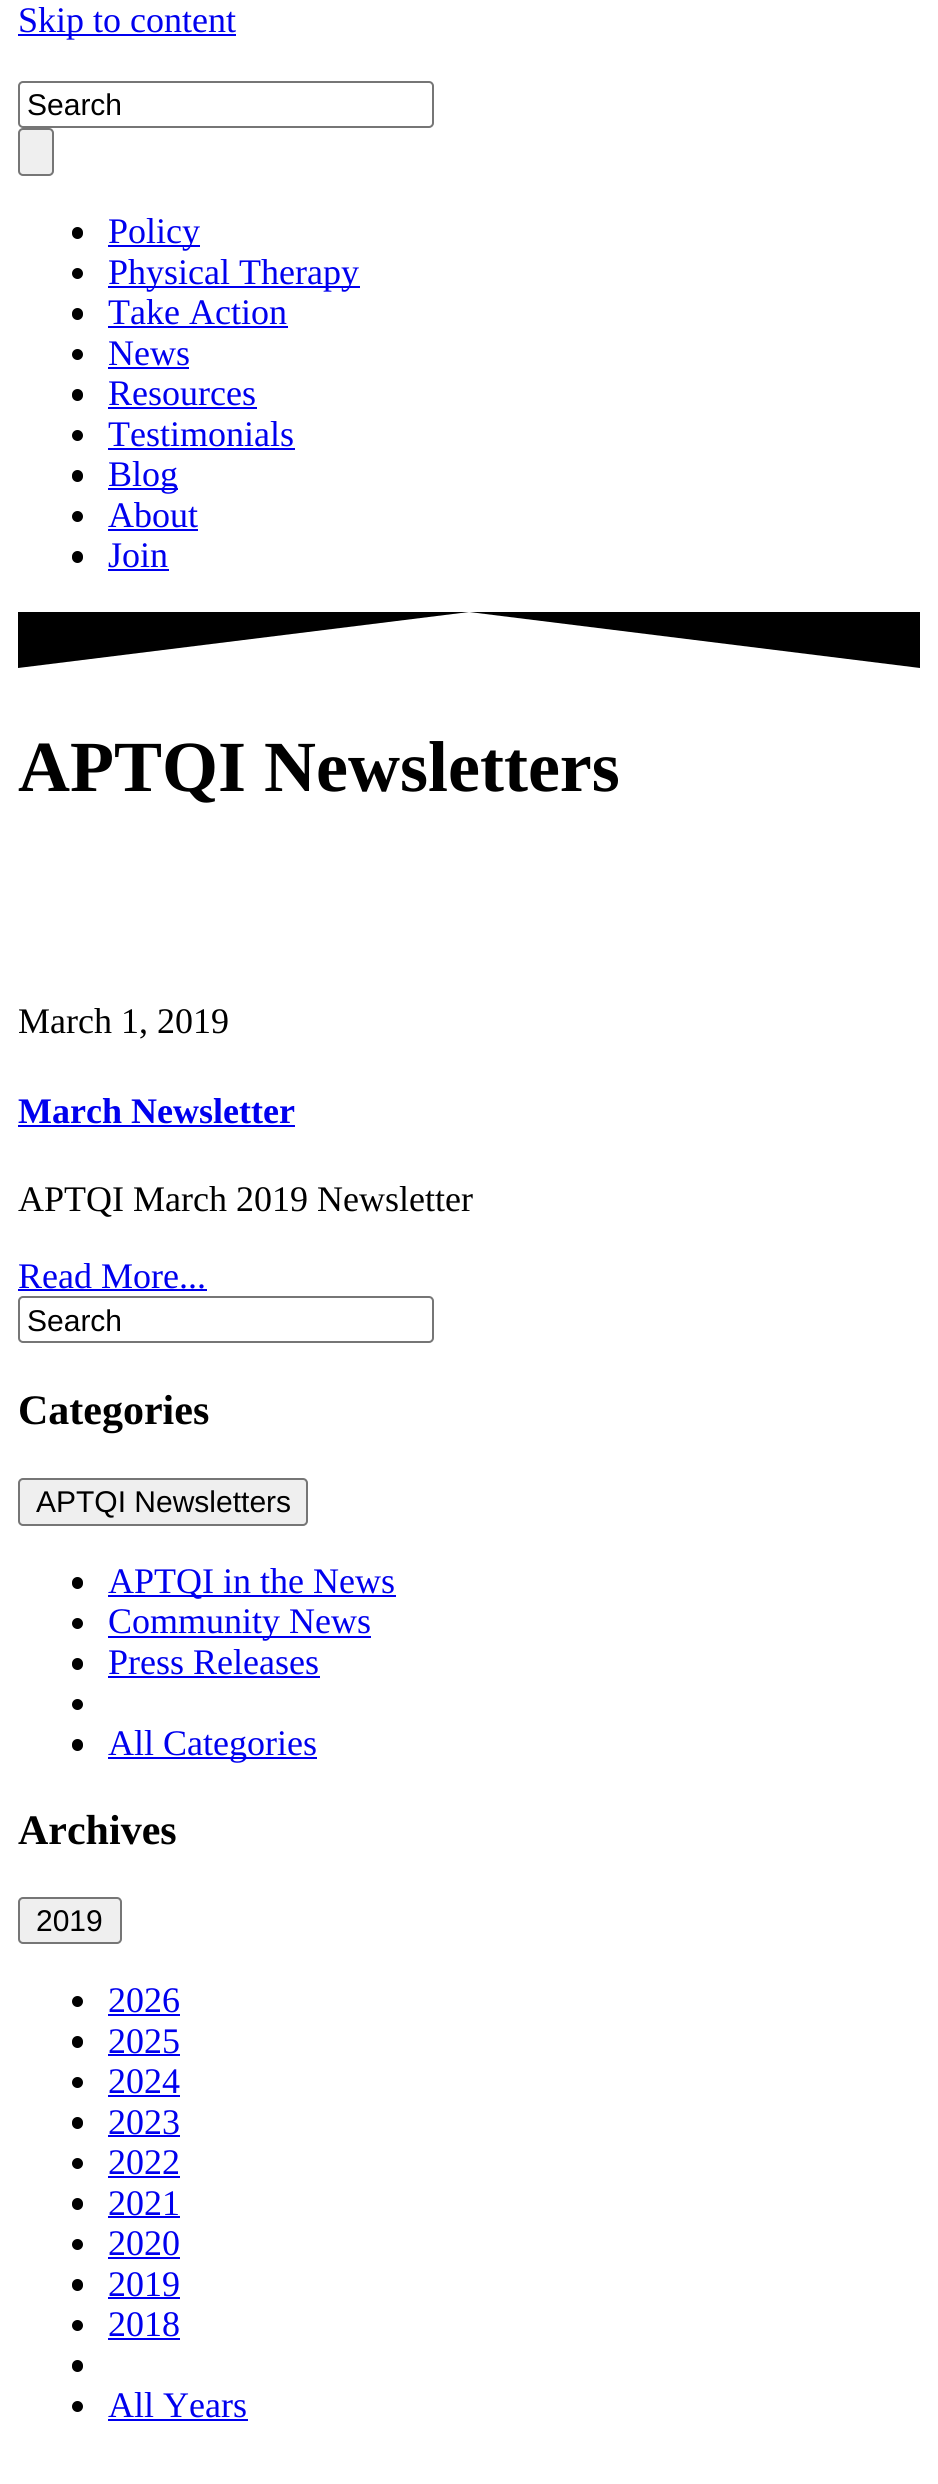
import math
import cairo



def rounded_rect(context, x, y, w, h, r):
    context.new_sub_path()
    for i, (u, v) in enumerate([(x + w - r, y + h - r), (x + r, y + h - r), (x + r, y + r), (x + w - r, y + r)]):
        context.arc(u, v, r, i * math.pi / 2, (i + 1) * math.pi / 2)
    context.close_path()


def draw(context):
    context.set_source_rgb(1, 1, 1)
    context.paint()
    context.set_source_rgb(0, 0, 238 / 255)
    context.rectangle(18, 34, 218, 2)
    context.fill()
    rounded_rect(context, 19, 82, 414, 45, 4)
    context.set_source_rgb(118 / 255, 118 / 255, 118 / 255)
    context.stroke()
    context.set_source_rgb(239 / 255, 239 / 255, 239 / 255)
    rounded_rect(context, 19, 129, 34, 46, 4)
    context.fill_preserve()
    context.set_source_rgb(118 / 255, 118 / 255, 118 / 255)
    context.stroke()
    context.set_source_rgb(0, 0, 0)
    rounded_rect(context, 72, 227, 11, 12, 5.5)
    context.fill()
    context.set_source_rgb(0, 0, 238 / 255)
    context.rectangle(108, 245, 92, 2)
    context.fill()
    context.set_source_rgb(0, 0, 0)
    context.arc(77.5, 273.5, 5.5, 0, 2 * math.pi)
    context.fill()
    context.set_source_rgb(0, 0, 238 / 255)
    context.rectangle(108, 286, 252, 2)
    context.fill()
    context.set_source_rgb(0, 0, 0)
    rounded_rect(context, 72, 308, 11, 12, 5.5)
    context.fill()
    context.set_source_rgb(0, 0, 238 / 255)
    context.rectangle(108, 326, 180, 2)
    context.fill()
    context.set_source_rgb(0, 0, 0)
    context.arc(77.5, 354.5, 5.5, 0, 2 * math.pi)
    context.fill()
    context.set_source_rgb(0, 0, 238 / 255)
    context.rectangle(108, 367, 81, 2)
    context.fill()
    context.set_source_rgb(0, 0, 0)
    rounded_rect(context, 72, 389, 11, 12, 5.5)
    context.fill()
    context.set_source_rgb(0, 0, 238 / 255)
    context.rectangle(108, 407, 149, 2)
    context.fill()
    context.set_source_rgb(0, 0, 0)
    context.arc(77.5, 435.5, 5.5, 0, 2 * math.pi)
    context.fill()
    context.set_source_rgb(0, 0, 238 / 255)
    context.rectangle(108, 448, 187, 2)
    context.fill()
    context.set_source_rgb(0, 0, 0)
    rounded_rect(context, 72, 470, 11, 12, 5.5)
    context.fill()
    context.set_source_rgb(0, 0, 238 / 255)
    context.rectangle(108, 488, 70, 2)
    context.fill()
    context.set_source_rgb(0, 0, 0)
    context.arc(77.5, 516.5, 5.5, 0, 2 * math.pi)
    context.fill()
    context.set_source_rgb(0, 0, 238 / 255)
    context.rectangle(108, 529, 90, 2)
    context.fill()
    context.set_source_rgb(0, 0, 0)
    rounded_rect(context, 72, 551, 11, 12, 5.5)
    context.fill()
    context.set_source_rgb(0, 0, 238 / 255)
    context.rectangle(108, 569, 61, 2)
    context.fill()
    context.set_source_rgb(0, 0, 0)
    context.new_path()
    context.move_to(18, 612)
    context.line_to(920, 612)
    context.line_to(920, 668)
    context.line_to(469, 612)
    context.line_to(18, 668)
    context.close_path()
    context.fill()
    context.set_source_rgb(0, 0, 238 / 255)
    context.rectangle(18, 1125, 277, 2)
    context.fill()
    context.rectangle(18, 1289, 189, 2)
    context.fill()
    rounded_rect(context, 19, 1297, 414, 45, 4)
    context.set_source_rgb(118 / 255, 118 / 255, 118 / 255)
    context.stroke()
    context.set_source_rgb(239 / 255, 239 / 255, 239 / 255)
    rounded_rect(context, 19, 1479, 288, 46, 4)
    context.fill_preserve()
    context.set_source_rgb(118 / 255, 118 / 255, 118 / 255)
    context.stroke()
    context.set_source_rgb(0, 0, 0)
    rounded_rect(context, 72, 1577, 11, 12, 5.5)
    context.fill()
    context.set_source_rgb(0, 0, 238 / 255)
    context.rectangle(108, 1595, 288, 2)
    context.fill()
    context.set_source_rgb(0, 0, 0)
    context.arc(77.5, 1623.5, 5.5, 0, 2 * math.pi)
    context.fill()
    context.set_source_rgb(0, 0, 238 / 255)
    context.rectangle(108, 1636, 263, 2)
    context.fill()
    context.set_source_rgb(0, 0, 0)
    rounded_rect(context, 72, 1658, 11, 12, 5.5)
    context.fill()
    context.set_source_rgb(0, 0, 238 / 255)
    context.rectangle(108, 1676, 212, 2)
    context.fill()
    context.set_source_rgb(0, 0, 0)
    context.arc(77.5, 1704.5, 5.5, 0, 2 * math.pi)
    context.fill()
    rounded_rect(context, 72, 1739, 11, 12, 5.5)
    context.fill()
    context.set_source_rgb(0, 0, 238 / 255)
    context.rectangle(108, 1757, 209, 2)
    context.fill()
    context.set_source_rgb(239 / 255, 239 / 255, 239 / 255)
    rounded_rect(context, 19, 1898, 102, 45, 4)
    context.fill_preserve()
    context.set_source_rgb(118 / 255, 118 / 255, 118 / 255)
    context.stroke()
    context.set_source_rgb(0, 0, 0)
    context.arc(77.5, 2001.5, 5.5, 0, 2 * math.pi)
    context.fill()
    context.set_source_rgb(0, 0, 238 / 255)
    context.rectangle(108, 2014, 72, 2)
    context.fill()
    context.set_source_rgb(0, 0, 0)
    rounded_rect(context, 72, 2036, 11, 12, 5.5)
    context.fill()
    context.set_source_rgb(0, 0, 238 / 255)
    context.rectangle(108, 2054, 72, 2)
    context.fill()
    context.set_source_rgb(0, 0, 0)
    context.arc(77.5, 2082.5, 5.5, 0, 2 * math.pi)
    context.fill()
    context.set_source_rgb(0, 0, 238 / 255)
    context.rectangle(108, 2095, 72, 2)
    context.fill()
    context.set_source_rgb(0, 0, 0)
    rounded_rect(context, 72, 2117, 11, 12, 5.5)
    context.fill()
    context.set_source_rgb(0, 0, 238 / 255)
    context.rectangle(108, 2135, 72, 2)
    context.fill()
    context.set_source_rgb(0, 0, 0)
    context.arc(77.5, 2163.5, 5.5, 0, 2 * math.pi)
    context.fill()
    context.set_source_rgb(0, 0, 238 / 255)
    context.rectangle(108, 2176, 72, 2)
    context.fill()
    context.set_source_rgb(0, 0, 0)
    rounded_rect(context, 72, 2198, 11, 12, 5.5)
    context.fill()
    context.set_source_rgb(0, 0, 238 / 255)
    context.rectangle(108, 2216, 72, 2)
    context.fill()
    context.set_source_rgb(0, 0, 0)
    context.arc(77.5, 2244.5, 5.5, 0, 2 * math.pi)
    context.fill()
    context.set_source_rgb(0, 0, 238 / 255)
    context.rectangle(108, 2257, 72, 2)
    context.fill()
    context.set_source_rgb(0, 0, 0)
    rounded_rect(context, 72, 2279, 11, 12, 5.5)
    context.fill()
    context.set_source_rgb(0, 0, 238 / 255)
    context.rectangle(108, 2297, 72, 2)
    context.fill()
    context.set_source_rgb(0, 0, 0)
    context.arc(77.5, 2325.5, 5.5, 0, 2 * math.pi)
    context.fill()
    context.set_source_rgb(0, 0, 238 / 255)
    context.rectangle(108, 2338, 72, 2)
    context.fill()
    context.set_source_rgb(0, 0, 0)
    rounded_rect(context, 72, 2360, 11, 12, 5.5)
    context.fill()
    context.arc(77.5, 2406.5, 5.5, 0, 2 * math.pi)
    context.fill()
    context.set_source_rgb(0, 0, 238 / 255)
    context.rectangle(108, 2419, 140, 2)
    context.fill()
    context.select_font_face("Liberation Serif")
    context.set_font_size(36)
    context.move_to(18, 32)
    context.show_text("Skip to content")
    context.select_font_face("Liberation Sans")
    context.set_font_size(30)
    context.set_source_rgb(0, 0, 0)
    context.move_to(27, 115)
    context.show_text("Search")
    context.select_font_face("Liberation Serif")
    context.set_font_size(36)
    context.set_source_rgb(0, 0, 238 / 255)
    context.move_to(108, 243)
    context.show_text("Policy")
    context.move_to(108, 284)
    context.show_text("Physical Therapy")
    context.move_to(108, 324)
    context.show_text("Take Action")
    context.move_to(108, 365)
    context.show_text("News")
    context.move_to(108, 405)
    context.show_text("Resources")
    context.move_to(108, 446)
    context.show_text("Testimonials")
    context.move_to(108, 486)
    context.show_text("Blog")
    context.move_to(108, 527)
    context.show_text("About")
    context.move_to(108, 567)
    context.show_text("Join")
    context.select_font_face("Liberation Serif", cairo.FontSlant.NORMAL, cairo.FontWeight.BOLD)
    context.set_font_size(72)
    context.set_source_rgb(0, 0, 0)
    context.move_to(18, 791)
    context.show_text("APTQI Newsletters")
    context.select_font_face("Liberation Serif")
    context.set_font_size(36)
    context.move_to(18, 1033)
    context.show_text("March 1, 2019")
    context.select_font_face("Liberation Serif", cairo.FontSlant.NORMAL, cairo.FontWeight.BOLD)
    context.set_source_rgb(0, 0, 238 / 255)
    context.move_to(18, 1123)
    context.show_text("March Newsletter")
    context.select_font_face("Liberation Serif")
    context.set_source_rgb(0, 0, 0)
    context.move_to(18, 1211)
    context.show_text("APTQI March 2019 Newsletter")
    context.set_source_rgb(0, 0, 238 / 255)
    context.move_to(18, 1288)
    context.show_text("Read More...")
    context.select_font_face("Liberation Sans")
    context.set_font_size(30)
    context.set_source_rgb(0, 0, 0)
    context.move_to(27, 1331)
    context.show_text("Search")
    context.select_font_face("Liberation Serif", cairo.FontSlant.NORMAL, cairo.FontWeight.BOLD)
    context.set_font_size(42)
    context.move_to(18, 1424)
    context.show_text("Categories")
    context.select_font_face("Liberation Sans")
    context.set_font_size(30)
    context.move_to(36, 1512)
    context.show_text("APTQI Newsletters")
    context.select_font_face("Liberation Serif")
    context.set_font_size(36)
    context.set_source_rgb(0, 0, 238 / 255)
    context.move_to(108, 1593)
    context.show_text("APTQI in the News")
    context.move_to(108, 1633)
    context.show_text("Community News")
    context.move_to(108, 1674)
    context.show_text("Press Releases")
    context.move_to(108, 1755)
    context.show_text("All Categories")
    context.select_font_face("Liberation Serif", cairo.FontSlant.NORMAL, cairo.FontWeight.BOLD)
    context.set_font_size(42)
    context.set_source_rgb(0, 0, 0)
    context.move_to(18, 1844)
    context.show_text("Archives")
    context.select_font_face("Liberation Sans")
    context.set_font_size(30)
    context.move_to(36, 1931)
    context.show_text("2019")
    context.select_font_face("Liberation Serif")
    context.set_font_size(36)
    context.set_source_rgb(0, 0, 238 / 255)
    context.move_to(108, 2012)
    context.show_text("2026")
    context.move_to(108, 2053)
    context.show_text("2025")
    context.move_to(108, 2093)
    context.show_text("2024")
    context.move_to(108, 2134)
    context.show_text("2023")
    context.move_to(108, 2174)
    context.show_text("2022")
    context.move_to(108, 2215)
    context.show_text("2021")
    context.move_to(108, 2255)
    context.show_text("2020")
    context.move_to(108, 2296)
    context.show_text("2019")
    context.move_to(108, 2336)
    context.show_text("2018")
    context.move_to(108, 2417)
    context.show_text("All Years")


surface = cairo.ImageSurface(cairo.Format.RGB24, 938, 2484)
context = cairo.Context(surface)
options = cairo.FontOptions()
options.set_hint_metrics(cairo.HintMetrics.OFF)
options.set_hint_style(cairo.HintStyle.NONE)
context.set_font_options(options)
context.set_miter_limit(4)
draw(context)
surface.write_to_png("out.png")
